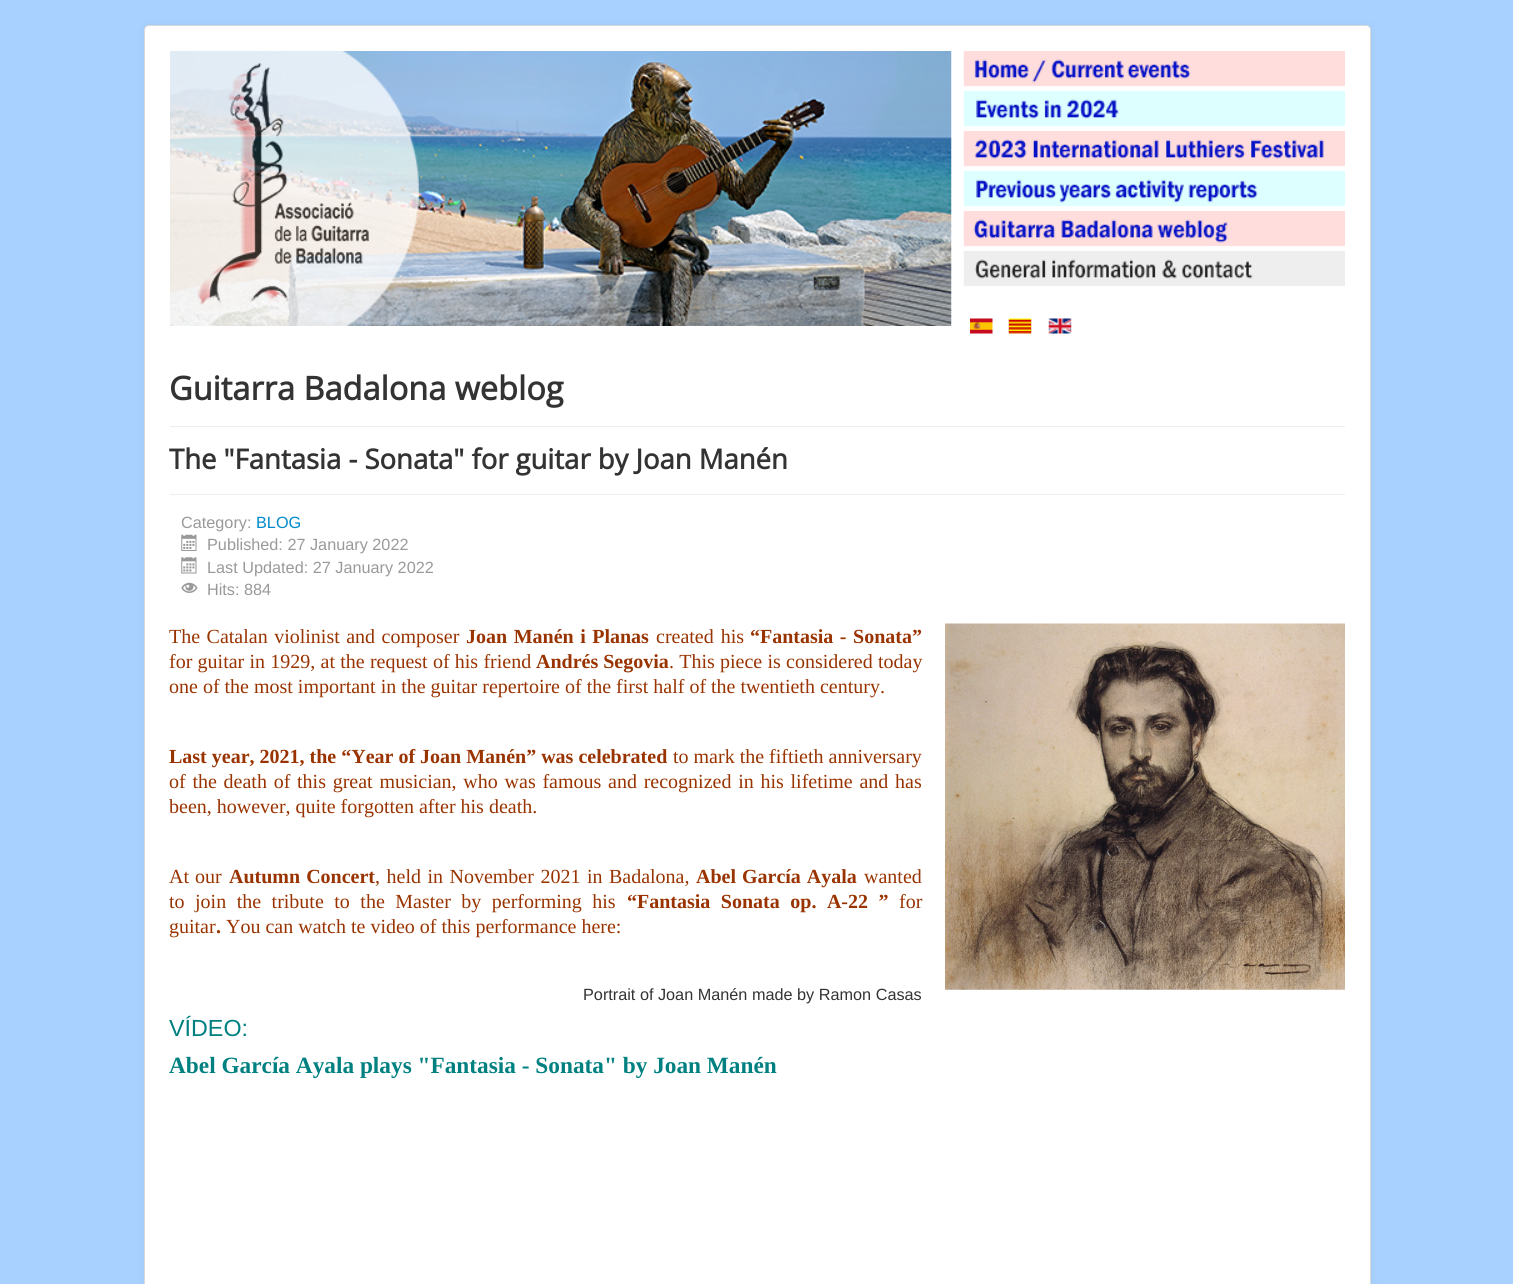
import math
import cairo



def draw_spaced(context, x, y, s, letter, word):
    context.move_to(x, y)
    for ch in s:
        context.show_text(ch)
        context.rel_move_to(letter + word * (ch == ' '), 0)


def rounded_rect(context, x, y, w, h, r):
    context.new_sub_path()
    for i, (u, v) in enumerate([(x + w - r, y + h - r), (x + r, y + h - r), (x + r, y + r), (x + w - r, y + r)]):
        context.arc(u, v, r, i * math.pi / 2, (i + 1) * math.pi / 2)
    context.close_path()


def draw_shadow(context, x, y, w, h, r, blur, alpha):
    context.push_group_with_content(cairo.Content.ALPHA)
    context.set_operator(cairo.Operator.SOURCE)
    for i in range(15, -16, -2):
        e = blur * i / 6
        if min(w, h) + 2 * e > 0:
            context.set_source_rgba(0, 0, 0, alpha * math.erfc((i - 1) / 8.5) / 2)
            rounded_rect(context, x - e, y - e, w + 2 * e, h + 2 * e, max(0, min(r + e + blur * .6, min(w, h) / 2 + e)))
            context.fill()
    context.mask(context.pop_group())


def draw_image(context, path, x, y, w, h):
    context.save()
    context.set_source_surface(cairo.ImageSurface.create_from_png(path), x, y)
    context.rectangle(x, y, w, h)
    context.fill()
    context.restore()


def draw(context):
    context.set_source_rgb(168 / 255, 209 / 255, 1)
    context.paint()
    context.set_source_rgb(0, 0, 0)
    draw_shadow(context, 144, 25, 1227, 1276, 5, 4, 0.05)
    context.set_source_rgb(1, 1, 1)
    rounded_rect(context, 144, 25, 1227, 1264, 5)
    context.fill()
    rounded_rect(context, 144.5, 25.5, 1226, 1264, 4.5)
    context.set_source_rgba(0, 0, 0, 0.15)
    context.set_line_width(1)
    context.stroke()
    draw_image(context, "images/1.png", 170, 51, 782, 275)
    draw_image(context, "images/2.png", 963, 51, 382, 36)
    draw_image(context, "images/3.png", 963, 91, 382, 36)
    draw_image(context, "images/4.png", 963, 131, 382, 36)
    draw_image(context, "images/5.png", 963, 171, 382, 36)
    draw_image(context, "images/6.png", 963, 211, 382, 36)
    draw_image(context, "images/7.png", 963, 251, 382, 35)
    draw_image(context, "images/8.png", 970, 318, 23, 16)
    draw_image(context, "images/9.png", 1008, 318, 24, 16)
    draw_image(context, "images/10.png", 1048, 318, 24, 16)
    context.set_source_rgb(238 / 255, 238 / 255, 238 / 255)
    context.rectangle(170, 426, 1175, 1)
    context.fill()
    context.rectangle(170, 494, 1175, 1)
    context.fill()
    draw_image(context, "images/11.png", 181, 534, 16, 17)
    draw_image(context, "images/12.png", 181, 557, 16, 17)
    draw_image(context, "images/13.png", 181, 582, 17, 11)
    draw_image(context, "images/14.png", 945, 623, 400, 367)
    context.select_font_face("Open Sans", cairo.FontSlant.NORMAL, cairo.FontWeight.BOLD)
    context.set_font_size(32.5)
    context.set_source_rgb(51 / 255, 51 / 255, 51 / 255)
    context.move_to(169, 400)
    context.show_text("Guitarra Badalona weblog")
    context.set_font_size(27.5)
    context.move_to(169, 469)
    context.show_text("The \"Fantasia - Sonata\" for guitar by Joan Manén")
    context.select_font_face("Liberation Sans")
    context.set_font_size(16.25)
    context.set_source_rgb(153 / 255, 153 / 255, 153 / 255)
    context.move_to(181, 528)
    context.show_text("Category:")
    context.set_source_rgb(0, 136 / 255, 204 / 255)
    context.move_to(256, 528)
    context.show_text("BLOG")
    context.set_source_rgb(153 / 255, 153 / 255, 153 / 255)
    context.move_to(207, 550)
    context.show_text("Published: 27 January 2022")
    context.move_to(207, 573)
    context.show_text("Last Updated: 27 January 2022")
    context.move_to(207, 595)
    context.show_text("Hits: 884")
    context.select_font_face("Liberation Serif")
    context.set_font_size(20)
    context.set_source_rgb(153 / 255, 51 / 255, 0)
    draw_spaced(context, 169, 643, "The Catalan violinist and composer", 0, 1.5)
    context.select_font_face("Liberation Serif", cairo.FontSlant.NORMAL, cairo.FontWeight.BOLD)
    draw_spaced(context, 466, 643, "Joan Manén i Planas", 0, 1.5)
    context.select_font_face("Liberation Serif")
    draw_spaced(context, 656, 643, "created his", 0, 2)
    context.select_font_face("Liberation Serif", cairo.FontSlant.NORMAL, cairo.FontWeight.BOLD)
    draw_spaced(context, 750, 643, "“Fantasia - Sonata”", 0, 1.5)
    context.select_font_face("Liberation Serif")
    draw_spaced(context, 169, 668, "for guitar in 1929, at the request of his friend", 0, 0.25)
    context.select_font_face("Liberation Serif", cairo.FontSlant.NORMAL, cairo.FontWeight.BOLD)
    context.move_to(536, 668)
    context.show_text("Andrés Segovia")
    context.select_font_face("Liberation Serif")
    draw_spaced(context, 669, 668, ". This piece is considered today", 0, 0.25)
    context.move_to(169, 693)
    context.show_text("one of the most important in the guitar repertoire of the first half of the twentieth century.")
    context.select_font_face("Liberation Serif", cairo.FontSlant.NORMAL, cairo.FontWeight.BOLD)
    context.move_to(169, 763)
    context.show_text("Last year, 2021, the “Year of Joan Manén” was celebrated")
    context.select_font_face("Liberation Serif")
    context.move_to(673, 763)
    context.show_text("to mark the fiftieth anniversary")
    draw_spaced(context, 169, 788, "of the death of this great musician, who was famous and recognized in his lifetime and has", 0, 1.75)
    context.move_to(169, 813)
    context.show_text("been, however, quite forgotten after his death.")
    draw_spaced(context, 169, 883, "At our", 0, 1)
    context.select_font_face("Liberation Serif", cairo.FontSlant.NORMAL, cairo.FontWeight.BOLD)
    draw_spaced(context, 229, 883, "Autumn Concert", 0, 1)
    context.select_font_face("Liberation Serif")
    draw_spaced(context, 375, 883, ", held in November 2021 in Badalona,", 0, 1.5)
    context.select_font_face("Liberation Serif", cairo.FontSlant.NORMAL, cairo.FontWeight.BOLD)
    draw_spaced(context, 696, 883, "Abel García Ayala", 0, 1)
    context.select_font_face("Liberation Serif")
    context.move_to(864, 883)
    context.show_text("wanted")
    draw_spaced(context, 169, 908, "to join the tribute to the Master by performing his", 0, 5.5)
    context.select_font_face("Liberation Serif", cairo.FontSlant.NORMAL, cairo.FontWeight.BOLD)
    draw_spaced(context, 627, 908, "“Fantasia Sonata op. A-22 ”", 0, 5.5)
    context.select_font_face("Liberation Serif")
    context.move_to(899, 908)
    context.show_text("for")
    context.move_to(169, 933)
    context.show_text("guitar")
    context.select_font_face("Liberation Serif", cairo.FontSlant.NORMAL, cairo.FontWeight.BOLD)
    context.move_to(216, 933)
    context.show_text(".")
    context.select_font_face("Liberation Serif")
    context.move_to(226, 933)
    context.show_text("You can watch te video of this performance here:")
    context.select_font_face("Liberation Sans")
    context.set_font_size(16.25)
    context.set_source_rgb(51 / 255, 51 / 255, 51 / 255)
    context.move_to(583, 1000)
    context.show_text("Portrait of Joan Manén made by Ramon Casas")
    context.set_font_size(23.3)
    context.set_source_rgb(0, 128 / 255, 128 / 255)
    context.move_to(169, 1036)
    context.show_text("VÍDEO:")
    context.select_font_face("Liberation Serif", cairo.FontSlant.NORMAL, cairo.FontWeight.BOLD)
    context.move_to(169, 1073)
    context.show_text("Abel García Ayala plays \"Fantasia - Sonata\" by Joan Manén")


surface = cairo.ImageSurface(cairo.Format.RGB24, 1513, 1284)
context = cairo.Context(surface)
options = cairo.FontOptions()
options.set_hint_metrics(cairo.HintMetrics.OFF)
options.set_hint_style(cairo.HintStyle.NONE)
context.set_font_options(options)
context.set_miter_limit(4)
draw(context)
surface.write_to_png("out.png")
